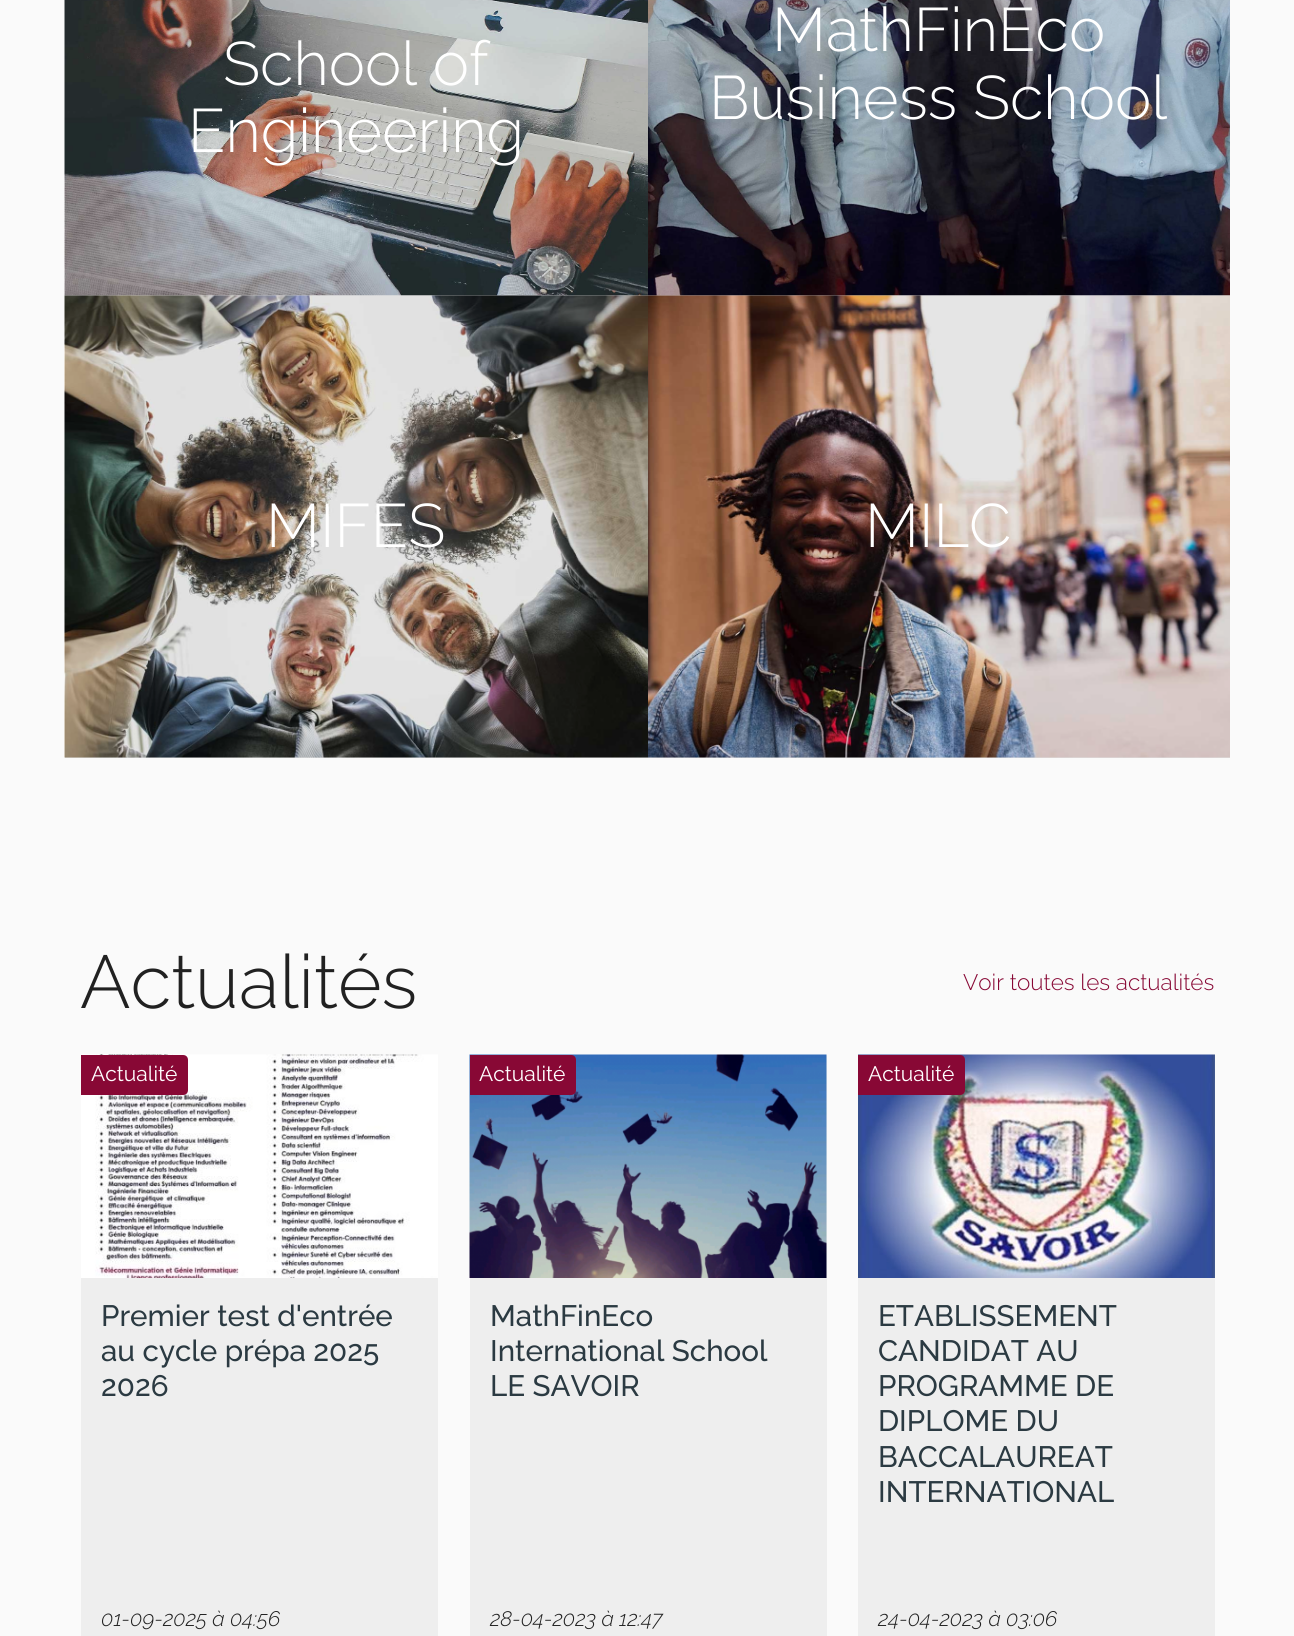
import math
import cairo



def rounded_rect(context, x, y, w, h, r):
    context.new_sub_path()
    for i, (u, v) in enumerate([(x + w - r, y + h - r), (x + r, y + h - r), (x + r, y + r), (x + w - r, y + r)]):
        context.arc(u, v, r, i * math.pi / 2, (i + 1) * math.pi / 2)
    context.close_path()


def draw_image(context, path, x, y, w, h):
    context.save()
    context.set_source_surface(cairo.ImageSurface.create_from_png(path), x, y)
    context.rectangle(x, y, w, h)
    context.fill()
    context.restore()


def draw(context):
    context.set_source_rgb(250 / 255, 250 / 255, 250 / 255)
    context.paint()
    context.set_source_rgb(225 / 255, 225 / 255, 225 / 255)
    context.rectangle(65, 757, 1165, 1)
    context.fill()
    draw_image(context, "images/1.png", 64, 0, 584, 296)
    draw_image(context, "images/3.png", 64, 295, 584, 463)
    context.set_source_rgba(0, 0, 0, 0.1)
    context.rectangle(65, 0, 583, 296)
    context.fill()
    draw_image(context, "images/2.png", 648, 0, 582, 296)
    draw_image(context, "images/4.png", 648, 295, 582, 463)
    context.rectangle(648, 0, 582, 296)
    context.fill()
    context.set_source_rgb(238 / 255, 238 / 255, 238 / 255)
    context.rectangle(81, 1278, 357, 358)
    context.fill()
    draw_image(context, "images/5.png", 81, 1054, 357, 224)
    context.set_source_rgb(136 / 255, 8 / 255, 53 / 255)
    context.new_path()
    context.move_to(81, 1055)
    context.line_to(183, 1055)
    context.curve_to(186, 1055, 188, 1057, 188, 1060)
    context.line_to(188, 1090)
    context.curve_to(188, 1093, 186, 1095, 183, 1095)
    context.line_to(81, 1095)
    context.close_path()
    context.fill()
    context.set_source_rgb(238 / 255, 238 / 255, 238 / 255)
    rounded_rect(context, 470, 1055, 357, 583, 1.5)
    context.fill()
    draw_image(context, "images/6.png", 469, 1054, 358, 224)
    context.set_source_rgb(136 / 255, 8 / 255, 53 / 255)
    context.new_path()
    context.move_to(470, 1055)
    context.line_to(571, 1055)
    context.curve_to(574, 1055, 576, 1057, 576, 1060)
    context.line_to(576, 1090)
    context.curve_to(576, 1093, 574, 1095, 571, 1095)
    context.line_to(470, 1095)
    context.close_path()
    context.fill()
    context.set_source_rgb(238 / 255, 238 / 255, 238 / 255)
    context.rectangle(858, 1278, 357, 358)
    context.fill()
    draw_image(context, "images/7.png", 858, 1054, 357, 224)
    context.set_source_rgb(136 / 255, 8 / 255, 53 / 255)
    context.new_path()
    context.move_to(858, 1055)
    context.line_to(960, 1055)
    context.curve_to(963, 1055, 965, 1057, 965, 1060)
    context.line_to(965, 1090)
    context.curve_to(965, 1093, 963, 1095, 960, 1095)
    context.line_to(858, 1095)
    context.close_path()
    context.fill()
    context.select_font_face("Raleway Light")
    context.set_font_size(61.25)
    context.set_source_rgb(1, 1, 1)
    context.move_to(223, 85)
    context.show_text("School of")
    context.move_to(188, 152)
    context.show_text("Engineering")
    context.move_to(772, 51)
    context.show_text("MathFinEco")
    context.move_to(709, 119)
    context.show_text("Business School")
    context.move_to(266, 547)
    context.show_text("MIFES")
    context.move_to(865, 547)
    context.show_text("MILC")
    context.set_font_size(74.75)
    context.set_source_rgb(33 / 255, 33 / 255, 33 / 255)
    context.move_to(80, 1008)
    context.show_text("Actualités")
    context.set_font_size(22.5)
    context.set_source_rgb(136 / 255, 8 / 255, 53 / 255)
    context.move_to(963, 990)
    context.show_text("Voir toutes les actualités")
    context.select_font_face("Raleway")
    context.set_font_size(21)
    context.set_source_rgb(1, 1, 1)
    context.move_to(91, 1081)
    context.show_text("Actualité")
    context.select_font_face("Raleway Medium")
    context.set_font_size(29.5)
    context.set_source_rgb(43 / 255, 58 / 255, 66 / 255)
    context.move_to(101, 1326)
    context.show_text("Premier test d'entrée")
    context.move_to(101, 1361)
    context.show_text("au cycle prépa 2025")
    context.move_to(101, 1396)
    context.show_text("2026")
    context.select_font_face("Raleway Light", cairo.FontSlant.ITALIC)
    context.set_font_size(21)
    context.set_source_rgb(33 / 255, 33 / 255, 33 / 255)
    context.move_to(101, 1626)
    context.show_text("01-09-2025 à 04:56")
    context.select_font_face("Raleway")
    context.set_source_rgb(1, 1, 1)
    context.move_to(479, 1081)
    context.show_text("Actualité")
    context.select_font_face("Raleway Medium")
    context.set_font_size(29.5)
    context.set_source_rgb(43 / 255, 58 / 255, 66 / 255)
    context.move_to(490, 1326)
    context.show_text("MathFinEco")
    context.move_to(490, 1361)
    context.show_text("International School")
    context.move_to(490, 1396)
    context.show_text("LE SAVOIR")
    context.select_font_face("Raleway Light", cairo.FontSlant.ITALIC)
    context.set_font_size(21)
    context.set_source_rgb(33 / 255, 33 / 255, 33 / 255)
    context.move_to(490, 1626)
    context.show_text("28-04-2023 à 12:47")
    context.select_font_face("Raleway")
    context.set_source_rgb(1, 1, 1)
    context.move_to(868, 1081)
    context.show_text("Actualité")
    context.select_font_face("Raleway Medium")
    context.set_font_size(29.5)
    context.set_source_rgb(43 / 255, 58 / 255, 66 / 255)
    context.move_to(878, 1326)
    context.show_text("ETABLISSEMENT")
    context.move_to(878, 1361)
    context.show_text("CANDIDAT AU")
    context.move_to(878, 1396)
    context.show_text("PROGRAMME DE")
    context.move_to(878, 1431)
    context.show_text("DIPLOME DU")
    context.move_to(878, 1467)
    context.show_text("BACCALAUREAT")
    context.move_to(878, 1502)
    context.show_text("INTERNATIONAL")
    context.select_font_face("Raleway Light", cairo.FontSlant.ITALIC)
    context.set_font_size(21)
    context.set_source_rgb(33 / 255, 33 / 255, 33 / 255)
    context.move_to(878, 1626)
    context.show_text("24-04-2023 à 03:06")


surface = cairo.ImageSurface(cairo.Format.RGB24, 1294, 1636)
context = cairo.Context(surface)
options = cairo.FontOptions()
options.set_hint_metrics(cairo.HintMetrics.OFF)
options.set_hint_style(cairo.HintStyle.NONE)
context.set_font_options(options)
context.set_miter_limit(4)
draw(context)
surface.write_to_png("out.png")
